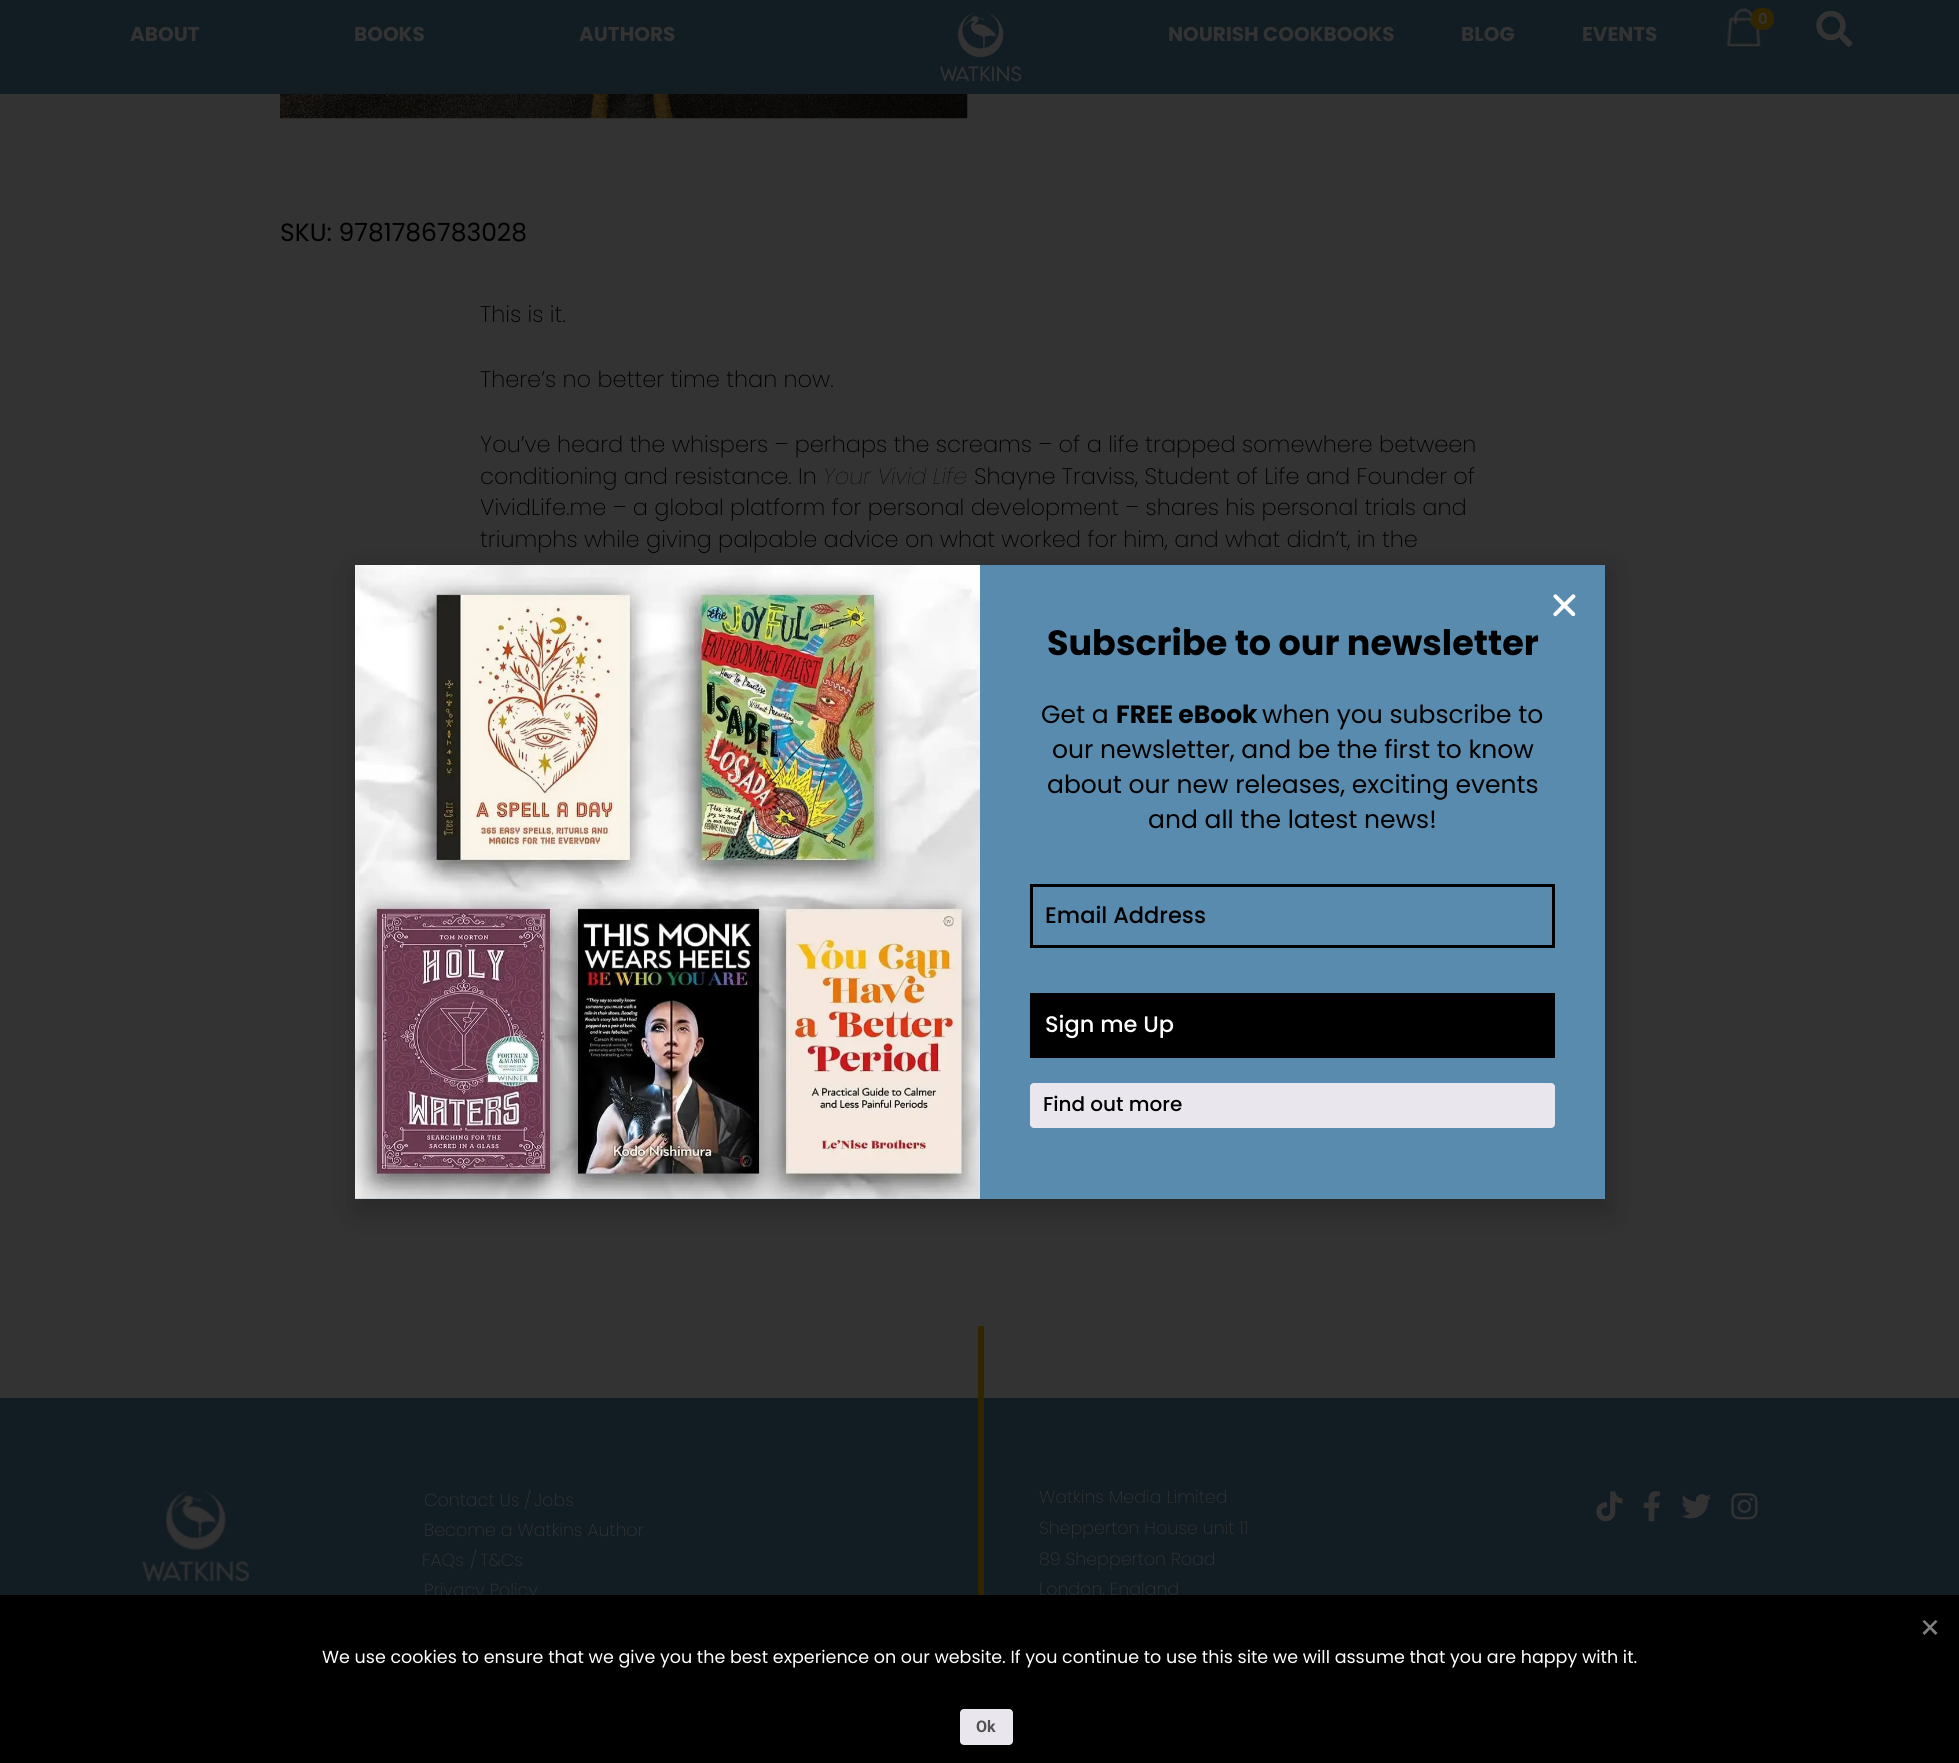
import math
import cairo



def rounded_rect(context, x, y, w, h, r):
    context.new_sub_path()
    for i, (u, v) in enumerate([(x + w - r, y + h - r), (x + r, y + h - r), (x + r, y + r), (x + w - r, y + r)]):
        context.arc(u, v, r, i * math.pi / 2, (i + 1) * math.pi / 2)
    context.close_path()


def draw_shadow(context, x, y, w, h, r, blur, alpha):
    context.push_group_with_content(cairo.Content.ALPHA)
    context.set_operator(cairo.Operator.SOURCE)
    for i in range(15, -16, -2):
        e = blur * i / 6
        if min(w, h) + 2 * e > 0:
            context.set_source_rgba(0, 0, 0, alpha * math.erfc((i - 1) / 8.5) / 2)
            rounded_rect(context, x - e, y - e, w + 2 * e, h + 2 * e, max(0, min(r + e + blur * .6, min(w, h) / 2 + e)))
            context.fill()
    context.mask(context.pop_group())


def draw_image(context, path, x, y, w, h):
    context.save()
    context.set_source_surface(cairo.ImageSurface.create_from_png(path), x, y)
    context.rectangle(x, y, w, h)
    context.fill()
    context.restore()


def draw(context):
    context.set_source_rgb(51 / 255, 51 / 255, 51 / 255)
    context.paint()
    context.set_source_rgb(18 / 255, 28 / 255, 35 / 255)
    context.rectangle(0, 0, 1959, 94)
    context.fill()
    draw_image(context, "images/1.png", 940, 12, 82, 70)
    draw_image(context, "images/2.png", 1726, 8, 36, 39)
    context.set_source_rgb(49 / 255, 38 / 255, 0)
    rounded_rect(context, 1751, 8, 23, 22, 10)
    context.fill()
    draw_image(context, "images/3.png", 1816, 10, 37, 37)
    draw_image(context, "images/4.png", 280, 94, 688, 25)
    context.set_source_rgb(0, 0, 0)
    draw_shadow(context, 354, 571, 1257, 642, 0, 14.5, 0.2)
    context.set_source_rgb(88 / 255, 139 / 255, 174 / 255)
    context.rectangle(355, 565, 1250, 634)
    context.fill()
    draw_image(context, "images/5.png", 1553, 594, 23, 23)
    draw_image(context, "images/6.png", 355, 565, 625, 634)
    context.rectangle(1031.5, 885.5, 522, 61)
    context.set_source_rgb(0, 0, 0)
    context.set_line_width(3)
    context.stroke()
    context.rectangle(1030, 993, 525, 65)
    context.fill()
    context.set_source_rgb(233 / 255, 230 / 255, 237 / 255)
    rounded_rect(context, 1030, 1083, 525, 45, 4)
    context.fill()
    context.set_source_rgb(18 / 255, 28 / 255, 35 / 255)
    context.rectangle(0, 1398, 1959, 197)
    context.fill()
    context.set_source_rgb(49 / 255, 38 / 255, 0)
    context.rectangle(978, 1326, 6, 269)
    context.fill()
    draw_image(context, "images/7.png", 142, 1491, 107, 90)
    draw_image(context, "images/8.png", 1596, 1491, 27, 31)
    draw_image(context, "images/9.png", 1643, 1491, 17, 31)
    draw_image(context, "images/10.png", 1681, 1494, 30, 25)
    draw_image(context, "images/11.png", 1731, 1493, 27, 27)
    context.select_font_face("Poppins", cairo.FontSlant.NORMAL, cairo.FontWeight.BOLD)
    context.set_font_size(20)
    context.set_source_rgb(51 / 255, 51 / 255, 51 / 255)
    context.move_to(130, 41)
    context.show_text("ABOUT")
    context.move_to(354, 41)
    context.show_text("BOOKS")
    context.move_to(579, 41)
    context.show_text("AUTHORS")
    context.select_font_face("Poppins SemiBold")
    context.set_font_size(15)
    context.move_to(1758, 24)
    context.show_text("0")
    context.select_font_face("Poppins", cairo.FontSlant.NORMAL, cairo.FontWeight.BOLD)
    context.set_font_size(20)
    context.move_to(1168, 41)
    context.show_text("NOURISH COOKBOOKS")
    context.move_to(1461, 41)
    context.show_text("BLOG")
    context.move_to(1582, 41)
    context.show_text("EVENTS")
    context.select_font_face("Poppins")
    context.set_font_size(25)
    context.set_source_rgb(0, 0, 0)
    context.move_to(280, 241)
    context.show_text("SKU: 9781786783028")
    context.select_font_face("Poppins ExtraLight")
    context.set_font_size(22.5)
    context.move_to(480, 322)
    context.show_text("This is it.")
    context.move_to(480, 387)
    context.show_text("There’s no better time than now.")
    context.move_to(480, 452)
    context.show_text("You’ve heard the whispers – perhaps the screams – of a life trapped somewhere between")
    context.move_to(480, 484)
    context.show_text("conditioning and resistance. In")
    context.select_font_face("Poppins ExtraLight", cairo.FontSlant.ITALIC)
    context.move_to(823, 484)
    context.show_text("Your Vivid Life")
    context.select_font_face("Poppins ExtraLight")
    context.move_to(974, 484)
    context.show_text("Shayne Traviss, Student of Life and Founder of")
    context.move_to(480, 515)
    context.show_text("VividLife.me – a global platform for personal development – shares his personal trials and")
    context.move_to(480, 547)
    context.show_text("triumphs while giving palpable advice on what worked for him, and what didn’t, in the")
    context.select_font_face("Poppins", cairo.FontSlant.NORMAL, cairo.FontWeight.BOLD)
    context.set_font_size(35)
    context.move_to(1047, 655)
    context.show_text("Subscribe to our newsletter")
    context.select_font_face("Poppins")
    context.set_font_size(25)
    context.move_to(1041, 723)
    context.show_text("Get a")
    context.select_font_face("Poppins", cairo.FontSlant.NORMAL, cairo.FontWeight.BOLD)
    context.move_to(1116, 723)
    context.show_text("FREE eBook")
    context.select_font_face("Poppins")
    context.move_to(1262, 723)
    context.show_text("when you subscribe to")
    context.move_to(1052, 758)
    context.show_text("our newsletter, and be the first to know")
    context.move_to(1047, 793)
    context.show_text("about our new releases, exciting events")
    context.move_to(1148, 828)
    context.show_text("and all the latest news!")
    context.select_font_face("Poppins Medium")
    context.set_font_size(22.5)
    context.move_to(1045, 923)
    context.show_text("Email Address")
    context.set_source_rgb(1, 1, 1)
    context.move_to(1045, 1032)
    context.show_text("Sign me Up")
    context.set_font_size(20)
    context.set_source_rgb(0, 0, 0)
    context.move_to(1043, 1111)
    context.show_text("Find out more")
    context.select_font_face("Poppins ExtraLight")
    context.set_font_size(17.5)
    context.set_source_rgb(51 / 255, 51 / 255, 51 / 255)
    context.move_to(424, 1506)
    context.show_text("Contact Us /")
    context.move_to(534, 1506)
    context.show_text("Jobs")
    context.move_to(424, 1536)
    context.show_text("Become a Watkins Author")
    context.move_to(422, 1566)
    context.show_text("FAQs")
    context.move_to(470, 1566)
    context.show_text("/")
    context.move_to(480, 1566)
    context.show_text("T&Cs")
    context.move_to(424, 1596)
    context.show_text("Privacy Policy")
    context.move_to(1039, 1503)
    context.show_text("Watkins Media Limited")
    context.move_to(1039, 1534)
    context.show_text("Shepperton House unit 11")
    context.move_to(1039, 1565)
    context.show_text("89 Shepperton Road")
    context.move_to(1039, 1595)
    context.show_text("London, England")
    context.set_source_rgb(0, 0, 0)
    context.rectangle(0, 1595, 1959, 168)
    context.fill()
    context.set_source_rgb(128 / 255, 128 / 255, 128 / 255)
    context.new_path()
    context.move_to(1935.5, 1620)
    context.line_to(1937.5, 1621.5)
    context.line_to(1924.5, 1635)
    context.line_to(1922.5, 1633)
    context.close_path()
    context.fill()
    context.new_path()
    context.move_to(1922.5, 1621.5)
    context.line_to(1924.5, 1620)
    context.line_to(1937.5, 1633)
    context.line_to(1935.5, 1635)
    context.close_path()
    context.fill()
    context.select_font_face("Poppins")
    context.set_source_rgb(1, 1, 1)
    context.move_to(322, 1663)
    context.show_text("We use cookies to ensure that we give you the best experience on our website. If you continue to use this site we will assume that you are happy with it.")
    context.set_source_rgb(233 / 255, 230 / 255, 237 / 255)
    rounded_rect(context, 960, 1709, 53, 36, 4)
    context.fill()
    context.select_font_face("Roboto", cairo.FontSlant.NORMAL, cairo.FontWeight.BOLD)
    context.set_font_size(16)
    context.set_source_rgb(81 / 255, 81 / 255, 81 / 255)
    context.move_to(976, 1732)
    context.show_text("Ok")


surface = cairo.ImageSurface(cairo.Format.RGB24, 1959, 1763)
context = cairo.Context(surface)
options = cairo.FontOptions()
options.set_hint_metrics(cairo.HintMetrics.OFF)
options.set_hint_style(cairo.HintStyle.NONE)
context.set_font_options(options)
context.set_miter_limit(4)
draw(context)
surface.write_to_png("out.png")
